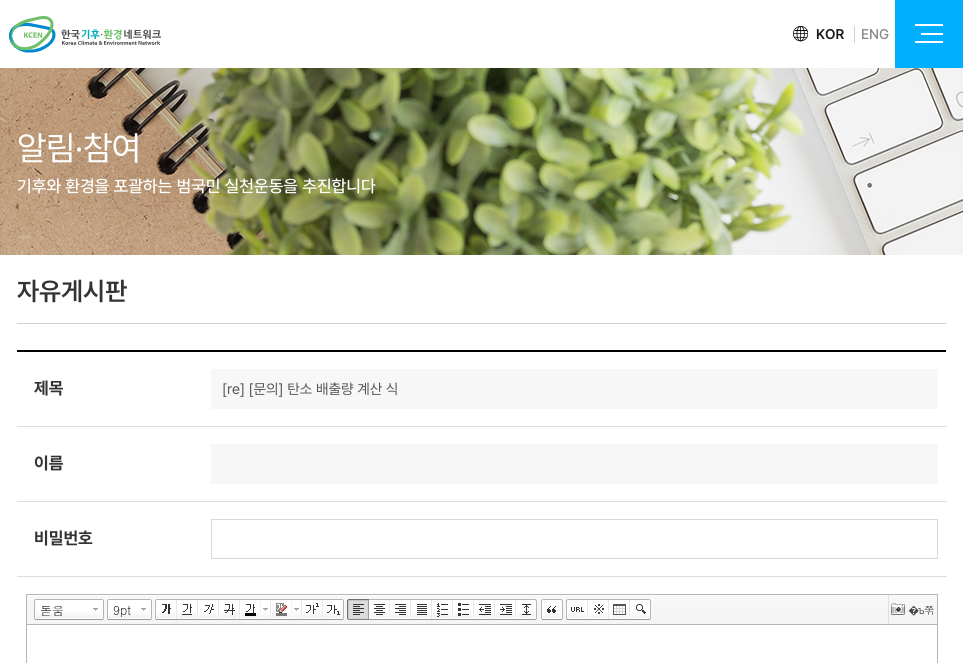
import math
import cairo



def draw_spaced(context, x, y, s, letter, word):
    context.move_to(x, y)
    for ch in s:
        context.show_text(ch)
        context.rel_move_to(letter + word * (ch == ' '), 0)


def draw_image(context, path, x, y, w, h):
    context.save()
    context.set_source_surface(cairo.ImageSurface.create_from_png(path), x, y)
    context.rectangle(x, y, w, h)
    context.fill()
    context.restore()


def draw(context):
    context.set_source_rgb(1, 1, 1)
    context.paint()
    draw_image(context, "images/1.png", 9, 16, 152, 37)
    draw_image(context, "images/2.png", 793, 26, 15, 16)
    context.set_source_rgb(209 / 255, 209 / 255, 209 / 255)
    context.rectangle(854, 26, 1, 17)
    context.fill()
    context.set_source_rgb(0, 175 / 255, 1)
    context.rectangle(895, 0, 68, 68)
    context.fill()
    context.set_source_rgb(1, 1, 1)
    context.rectangle(915, 24, 28, 2)
    context.fill()
    context.rectangle(921, 33, 22, 2)
    context.fill()
    context.rectangle(915, 41, 28, 2)
    context.fill()
    draw_image(context, "images/3.png", 0, 68, 963, 187)
    context.set_source_rgb(209 / 255, 209 / 255, 209 / 255)
    context.rectangle(17, 323, 929, 1)
    context.fill()
    context.set_source_rgb(0, 0, 0)
    context.rectangle(17, 350, 929, 2)
    context.fill()
    context.set_source_rgb(221 / 255, 221 / 255, 221 / 255)
    context.rectangle(17, 426, 930, 1)
    context.fill()
    context.set_source_rgb(247 / 255, 247 / 255, 247 / 255)
    context.rectangle(211, 369, 727, 40)
    context.fill()
    context.set_source_rgb(221 / 255, 221 / 255, 221 / 255)
    context.rectangle(17, 501, 930, 1)
    context.fill()
    context.set_source_rgb(247 / 255, 247 / 255, 247 / 255)
    context.rectangle(211, 444, 727, 40)
    context.fill()
    context.set_source_rgb(221 / 255, 221 / 255, 221 / 255)
    context.rectangle(17, 576, 930, 1)
    context.fill()
    context.rectangle(211.5, 519.5, 726, 39)
    context.set_source_rgb(216 / 255, 216 / 255, 216 / 255)
    context.set_line_width(1)
    context.stroke()
    draw_image(context, "images/4.png", 26, 594, 912, 69)
    context.select_font_face("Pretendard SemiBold")
    context.set_font_size(14)
    context.set_source_rgb(25 / 255, 25 / 255, 25 / 255)
    context.move_to(816, 39)
    context.show_text("KOR")
    context.select_font_face("Pretendard Medium")
    context.set_source_rgb(136 / 255, 136 / 255, 136 / 255)
    context.move_to(861, 39)
    context.show_text("ENG")
    context.select_font_face("Pretendard")
    context.set_font_size(34)
    context.set_source_rgb(1, 1, 1)
    draw_spaced(context, 17, 160, "알림·참여", -0.5, 0)
    context.select_font_face("Pretendard Medium")
    context.set_font_size(17)
    context.move_to(17, 192)
    context.show_text("기후와 환경을 포괄하는 범국민 실천운동을 추진합니다")
    context.select_font_face("Pretendard SemiBold")
    context.set_font_size(25.5)
    context.set_source_rgb(51 / 255, 51 / 255, 51 / 255)
    context.move_to(17, 300)
    context.show_text("자유게시판")
    context.select_font_face("Pretendard", cairo.FontSlant.NORMAL, cairo.FontWeight.BOLD)
    context.set_font_size(17)
    context.move_to(34, 394)
    context.show_text("제목")
    context.select_font_face("Pretendard")
    context.set_font_size(14.5)
    context.set_source_rgb(85 / 255, 85 / 255, 85 / 255)
    context.move_to(222, 394)
    context.show_text("[re] [문의] 탄소 배출량 계산 식")
    context.select_font_face("Pretendard", cairo.FontSlant.NORMAL, cairo.FontWeight.BOLD)
    context.set_font_size(17)
    context.set_source_rgb(51 / 255, 51 / 255, 51 / 255)
    context.move_to(34, 469)
    context.show_text("이름")
    context.move_to(34, 544)
    context.show_text("비밀번호")


surface = cairo.ImageSurface(cairo.Format.RGB24, 963, 663)
context = cairo.Context(surface)
options = cairo.FontOptions()
options.set_hint_metrics(cairo.HintMetrics.OFF)
options.set_hint_style(cairo.HintStyle.NONE)
context.set_font_options(options)
context.set_miter_limit(4)
draw(context)
surface.write_to_png("out.png")
